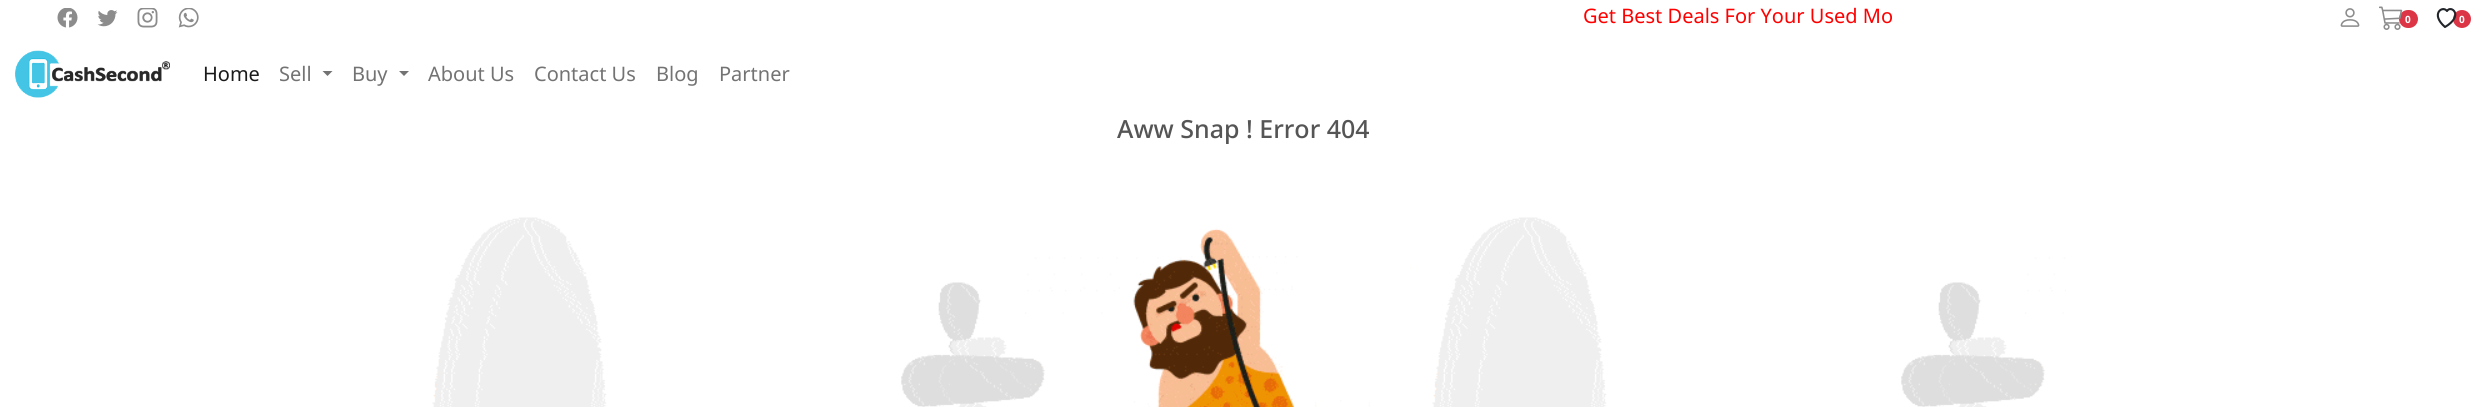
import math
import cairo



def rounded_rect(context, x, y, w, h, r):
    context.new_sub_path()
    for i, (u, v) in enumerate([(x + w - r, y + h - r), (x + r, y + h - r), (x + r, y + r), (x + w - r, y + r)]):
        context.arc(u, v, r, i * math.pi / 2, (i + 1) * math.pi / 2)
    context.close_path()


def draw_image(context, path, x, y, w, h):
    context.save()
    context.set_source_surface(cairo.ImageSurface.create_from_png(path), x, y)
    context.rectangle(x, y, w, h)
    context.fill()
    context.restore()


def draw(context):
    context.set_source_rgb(1, 1, 1)
    context.paint()
    draw_image(context, "images/1.png", 57, 8, 21, 20)
    draw_image(context, "images/2.png", 97, 10, 21, 17)
    draw_image(context, "images/3.png", 137, 8, 21, 20)
    draw_image(context, "images/4.png", 178, 8, 21, 20)
    draw_image(context, "images/5.png", 2340, 8, 20, 19)
    context.set_source_rgb(220 / 255, 53 / 255, 69 / 255)
    rounded_rect(context, 2399, 10, 19, 18, 9)
    context.fill()
    draw_image(context, "images/6.png", 2379, 6, 24, 24)
    context.arc(2462, 19, 9, 0, 2 * math.pi)
    context.fill()
    context.new_path()
    context.move_to(2445, 27)
    context.curve_to(2430, 14, 2442.5, 5, 2447, 11)
    context.curve_to(2451, 4.5, 2464.5, 15.5, 2445, 27)
    context.close_path()
    context.set_source_rgb(33 / 255, 37 / 255, 41 / 255)
    context.set_line_width(2.1)
    context.set_line_cap(cairo.LineCap.ROUND)
    context.set_line_join(cairo.LineJoin.ROUND)
    context.stroke()
    draw_image(context, "images/7.png", 15, 50, 155, 48)
    context.set_source_rgb(115 / 255, 115 / 255, 115 / 255)
    context.new_path()
    context.move_to(322.5, 71)
    context.line_to(332.5, 71)
    context.line_to(327.5, 76)
    context.close_path()
    context.fill()
    context.new_path()
    context.move_to(399, 71)
    context.line_to(409, 71)
    context.line_to(404, 76)
    context.close_path()
    context.fill()
    draw_image(context, "images/8.png", 432, 217, 1634, 190)
    context.select_font_face("Noto Sans")
    context.set_font_size(20)
    context.set_source_rgb(1, 0, 0)
    context.move_to(1583, 23)
    context.show_text("Get Best Deals For Your Used Mo")
    context.select_font_face("Noto Sans", cairo.FontSlant.NORMAL, cairo.FontWeight.BOLD)
    context.set_font_size(10)
    context.set_source_rgb(1, 1, 1)
    context.move_to(2405, 23)
    context.show_text("0")
    context.move_to(2459, 23)
    context.show_text("0")
    context.select_font_face("Noto Sans")
    context.set_font_size(20)
    context.set_source_rgb(26 / 255, 26 / 255, 26 / 255)
    context.move_to(203, 81)
    context.show_text("Home")
    context.set_source_rgb(115 / 255, 115 / 255, 115 / 255)
    context.move_to(279, 81)
    context.show_text("Sell")
    context.move_to(352, 81)
    context.show_text("Buy")
    context.move_to(428, 81)
    context.show_text("About Us")
    context.move_to(534, 81)
    context.show_text("Contact Us")
    context.move_to(656, 81)
    context.show_text("Blog")
    context.move_to(719, 81)
    context.show_text("Partner")
    context.select_font_face("Noto Sans Medium")
    context.set_font_size(25)
    context.set_source_rgb(85 / 255, 85 / 255, 85 / 255)
    context.move_to(1117, 138)
    context.show_text("Aww Snap ! Error 404")


surface = cairo.ImageSurface(cairo.Format.RGB24, 2486, 407)
context = cairo.Context(surface)
options = cairo.FontOptions()
options.set_hint_metrics(cairo.HintMetrics.OFF)
options.set_hint_style(cairo.HintStyle.NONE)
context.set_font_options(options)
context.set_miter_limit(4)
draw(context)
surface.write_to_png("out.png")
